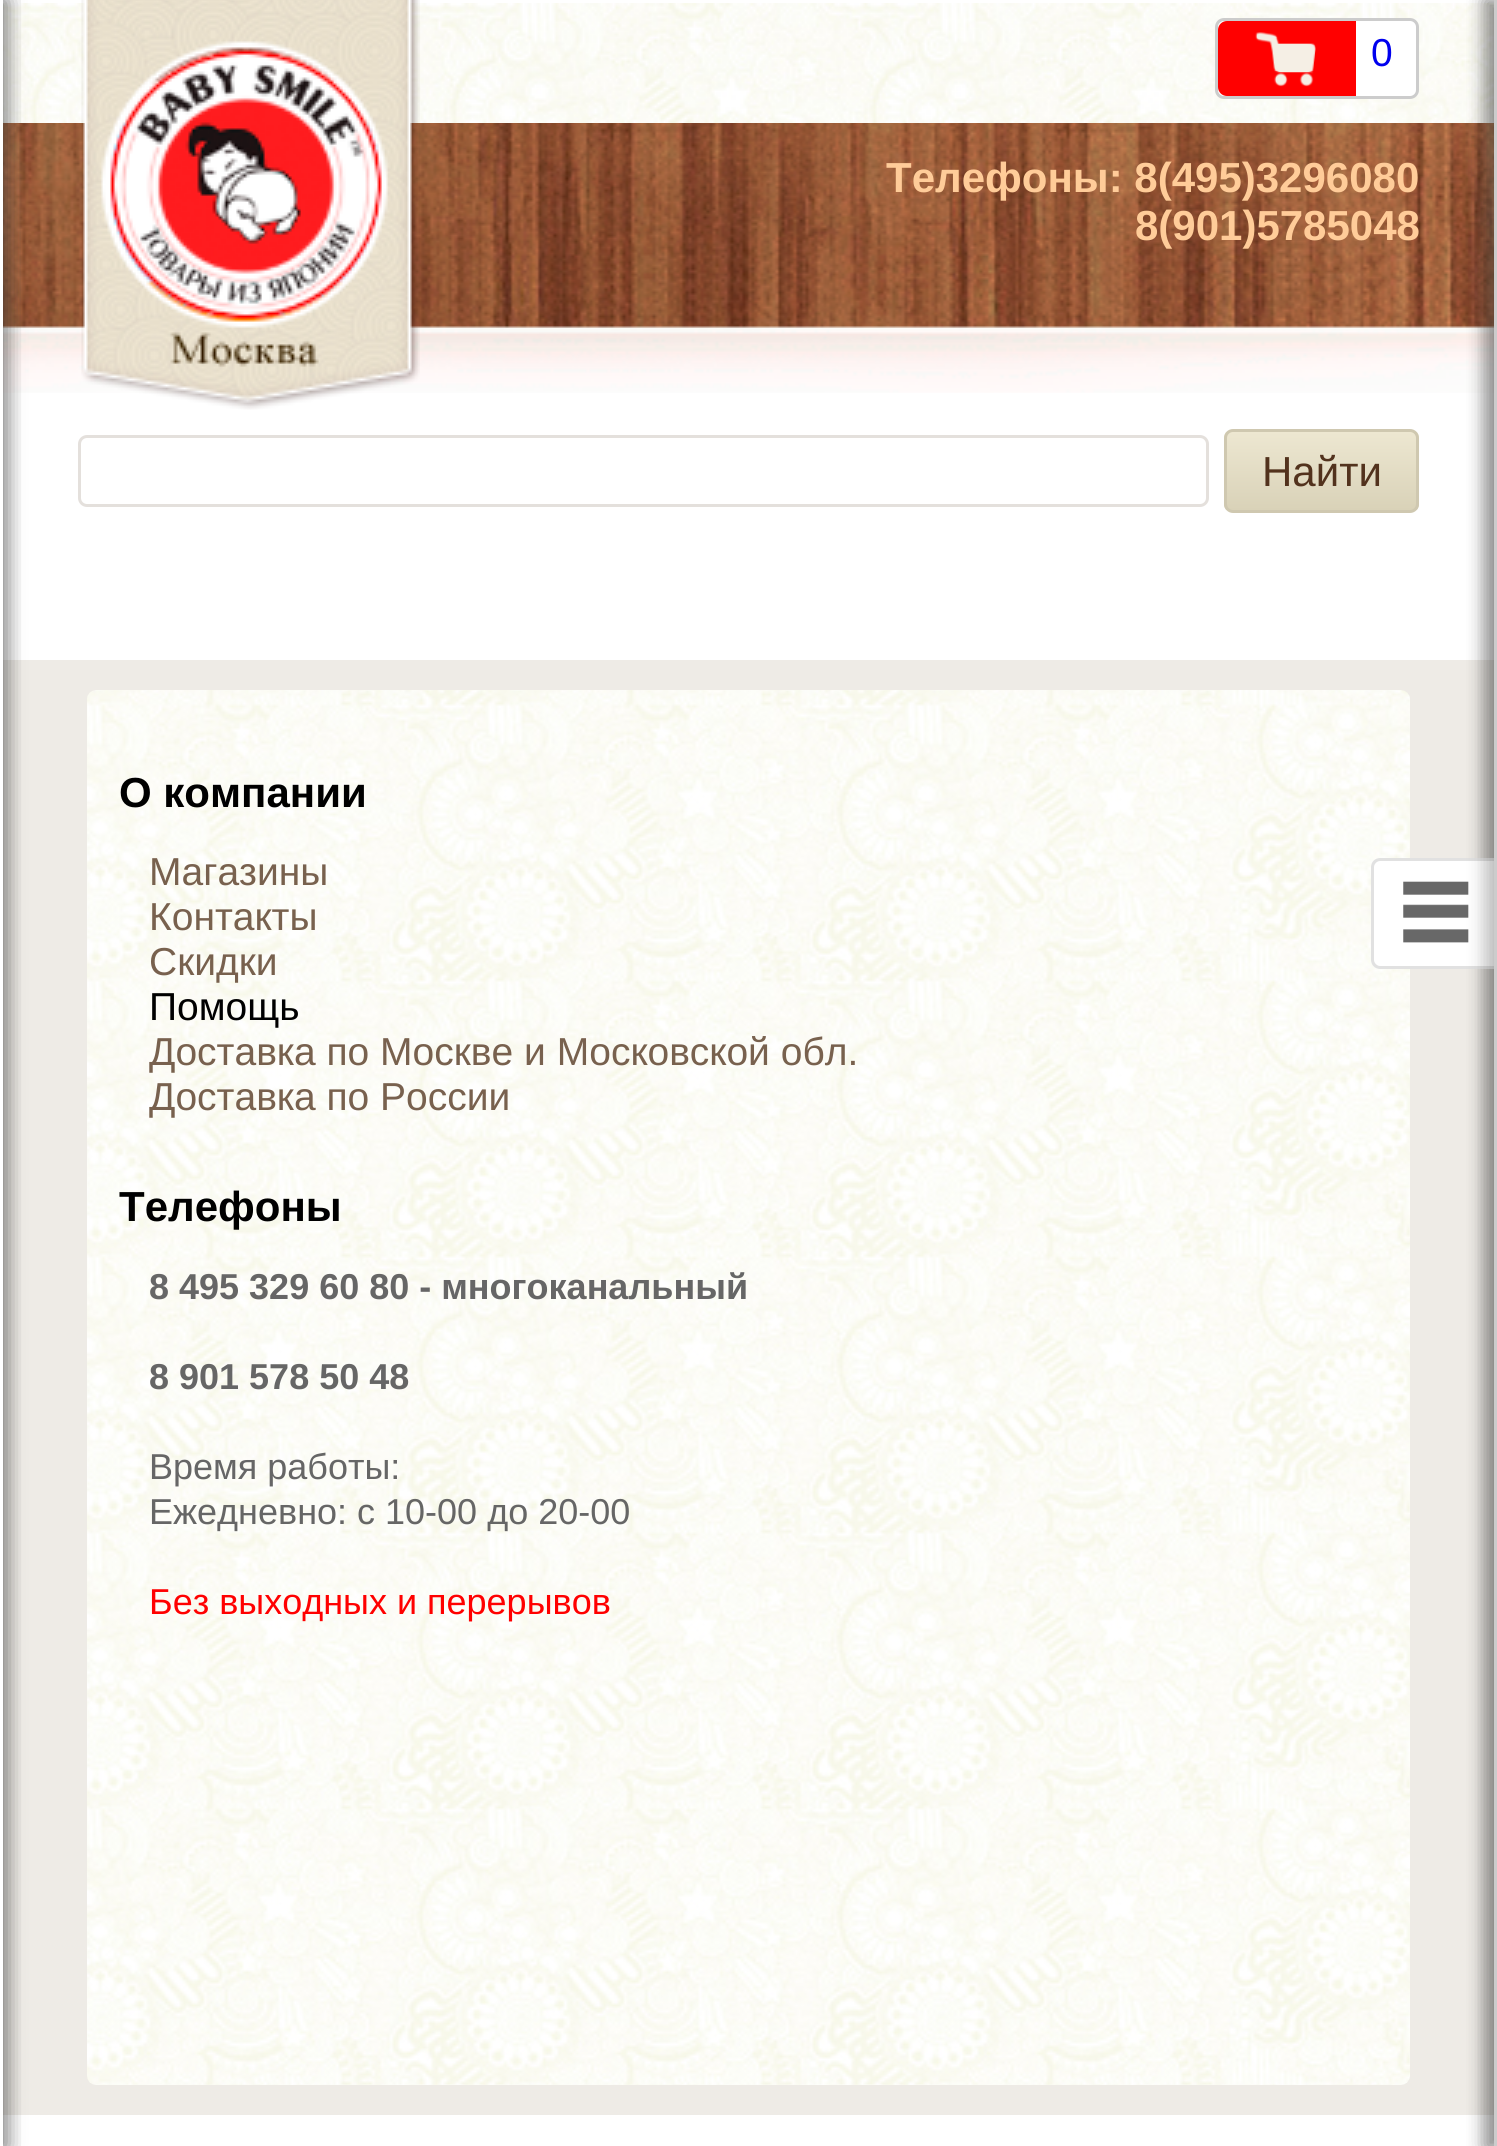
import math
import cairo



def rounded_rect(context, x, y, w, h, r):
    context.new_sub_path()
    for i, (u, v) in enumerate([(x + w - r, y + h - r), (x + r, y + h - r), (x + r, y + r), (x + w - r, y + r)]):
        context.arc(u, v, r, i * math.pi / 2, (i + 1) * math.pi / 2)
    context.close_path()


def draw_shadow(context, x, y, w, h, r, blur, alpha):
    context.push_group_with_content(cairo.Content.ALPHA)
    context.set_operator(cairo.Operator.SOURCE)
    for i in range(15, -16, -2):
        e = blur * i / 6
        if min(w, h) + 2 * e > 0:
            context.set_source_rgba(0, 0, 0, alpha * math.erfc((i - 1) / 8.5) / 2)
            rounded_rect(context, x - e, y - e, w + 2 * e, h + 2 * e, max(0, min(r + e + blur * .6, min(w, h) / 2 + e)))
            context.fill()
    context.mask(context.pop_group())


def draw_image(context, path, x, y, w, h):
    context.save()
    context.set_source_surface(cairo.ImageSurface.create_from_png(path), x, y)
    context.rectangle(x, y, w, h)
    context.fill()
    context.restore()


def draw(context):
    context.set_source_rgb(1, 1, 1)
    context.paint()
    draw_image(context, "images/1.png", 3, 123, 1491, 270)
    draw_image(context, "images/3.png", 3, 3, 1491, 120)
    context.set_source_rgb(238 / 255, 235 / 255, 230 / 255)
    context.rectangle(3, 660, 1491, 1455)
    context.fill()
    context.set_source_rgb(50 / 255, 50 / 255, 50 / 255)
    draw_shadow(context, -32, 0, 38, 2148, 0, 10.5, 0.28)
    context.set_source_rgb(1, 1, 1)
    context.rectangle(0, 0, 3, 2146)
    context.fill()
    context.save()
    context.rectangle(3, 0, 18, 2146)
    context.clip()
    context.set_source_rgb(50 / 255, 50 / 255, 50 / 255)
    draw_shadow(context, -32, 0, 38, 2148, 0, 10.5, 0.28)
    draw_shadow(context, -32, 0, 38, 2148, 0, 10.5, 0.28)
    context.restore()
    context.set_source_rgb(50 / 255, 50 / 255, 50 / 255)
    draw_shadow(context, 1485, 0, 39, 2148, 0, 9, 0.34)
    draw_image(context, "images/6.png", 87, 690, 1323, 1395)
    context.set_source_rgb(1, 1, 1)
    context.new_path()
    context.move_to(1380, 858)
    context.line_to(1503, 858)
    context.line_to(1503, 969)
    context.line_to(1380, 969)
    context.curve_to(1375, 969, 1371, 965, 1371, 960)
    context.line_to(1371, 867)
    context.curve_to(1371, 862, 1375, 858, 1380, 858)
    context.close_path()
    context.fill()
    context.set_source_rgb(225 / 255, 225 / 255, 225 / 255)
    context.set_fill_rule(cairo.FillRule.EVEN_ODD)
    context.new_path()
    context.move_to(1380, 858)
    context.line_to(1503, 858)
    context.line_to(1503, 969)
    context.line_to(1380, 969)
    context.curve_to(1375, 969, 1371, 965, 1371, 960)
    context.line_to(1371, 867)
    context.curve_to(1371, 862, 1375, 858, 1380, 858)
    context.close_path()
    context.move_to(1380, 861)
    context.line_to(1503, 861)
    context.line_to(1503, 966)
    context.line_to(1380, 966)
    context.curve_to(1377, 966, 1374, 963, 1374, 960)
    context.line_to(1374, 867)
    context.curve_to(1374, 864, 1377, 861, 1380, 861)
    context.close_path()
    context.fill()
    draw_image(context, "images/2.png", 1403, 881, 66, 62)
    context.set_source_rgb(50 / 255, 50 / 255, 50 / 255)
    draw_shadow(context, 1485, 0, 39, 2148, 0, 9, 0.34)
    context.set_source_rgb(204 / 255, 204 / 255, 204 / 255)
    context.rectangle(1494, 0, 3, 2146)
    context.fill()
    context.set_source_rgb(1, 1, 1)
    rounded_rect(context, 1216.5, 19.5, 201, 78, 7.5)
    context.fill_preserve()
    context.set_source_rgb(204 / 255, 204 / 255, 204 / 255)
    context.set_line_width(3)
    context.stroke()
    context.set_source_rgb(1, 0, 0)
    context.new_path()
    context.move_to(1227, 21)
    context.line_to(1356, 21)
    context.line_to(1356, 96)
    context.line_to(1227, 96)
    context.curve_to(1222, 96, 1218, 92, 1218, 87)
    context.line_to(1218, 30)
    context.curve_to(1218, 25, 1222, 21, 1227, 21)
    context.close_path()
    context.fill()
    draw_image(context, "images/4.png", 1255, 32, 61, 55)
    draw_image(context, "images/5.png", 81, 0, 339, 410)
    rounded_rect(context, 79.5, 436.5, 1128, 69, 7.5)
    context.set_source_rgb(228 / 255, 224 / 255, 220 / 255)
    context.stroke()
    context.save()
    context.set_fill_rule(cairo.FillRule.WINDING)
    rounded_rect(context, 1224, 429, 195, 84, 9)
    context.clip()
    gradient = cairo.LinearGradient(1322, 432, 1322, 510)
    gradient.add_color_stop_rgba(0, 237 / 255, 231 / 255, 209 / 255, 1)
    gradient.add_color_stop_rgba(1, 217 / 255, 210 / 255, 184 / 255, 1)
    context.set_source(gradient)
    context.rectangle(1224, 432, 195, 78)
    context.fill()
    context.restore()
    rounded_rect(context, 1225.5, 430.5, 192, 81, 7.5)
    context.set_source_rgb(207 / 255, 200 / 255, 176 / 255)
    context.stroke()
    context.select_font_face("Liberation Sans")
    context.set_font_size(39)
    context.set_source_rgb(0, 0, 238 / 255)
    context.move_to(1371, 66)
    context.show_text("0")
    context.select_font_face("Liberation Sans", cairo.FontSlant.NORMAL, cairo.FontWeight.BOLD)
    context.set_font_size(42)
    context.set_source_rgb(1, 204 / 255, 153 / 255)
    context.move_to(886, 192)
    context.show_text("Телефоны: 8(495)3296080")
    context.move_to(1135, 240)
    context.show_text("8(901)5785048")
    context.select_font_face("Liberation Sans")
    context.set_source_rgb(82 / 255, 50 / 255, 29 / 255)
    context.move_to(1262, 486)
    context.show_text("Найти")
    context.select_font_face("Liberation Sans", cairo.FontSlant.NORMAL, cairo.FontWeight.BOLD)
    context.set_source_rgb(0, 0, 0)
    context.move_to(119, 807)
    context.show_text("О компании")
    context.select_font_face("Liberation Sans")
    context.set_font_size(39)
    context.set_source_rgb(120 / 255, 97 / 255, 78 / 255)
    context.move_to(149, 885)
    context.show_text("Магазины")
    context.move_to(149, 930)
    context.show_text("Контакты")
    context.move_to(149, 975)
    context.show_text("Скидки")
    context.set_source_rgb(0, 0, 0)
    context.move_to(149, 1020)
    context.show_text("Помощь")
    context.set_source_rgb(120 / 255, 97 / 255, 78 / 255)
    context.move_to(149, 1065)
    context.show_text("Доставка по Москве и Московской обл.")
    context.move_to(149, 1110)
    context.show_text("Доставка по России")
    context.select_font_face("Liberation Sans", cairo.FontSlant.NORMAL, cairo.FontWeight.BOLD)
    context.set_font_size(42)
    context.set_source_rgb(0, 0, 0)
    context.move_to(119, 1221)
    context.show_text("Телефоны")
    context.set_font_size(36)
    context.set_source_rgb(102 / 255, 102 / 255, 102 / 255)
    context.move_to(149, 1299)
    context.show_text("8 495 329 60 80 - многоканальный")
    context.move_to(149, 1389)
    context.show_text("8 901 578 50 48")
    context.select_font_face("Liberation Sans")
    context.move_to(149, 1479)
    context.show_text("Время работы:")
    context.move_to(149, 1524)
    context.show_text("Ежедневно: с 10-00 до 20-00")
    context.set_source_rgb(1, 0, 0)
    context.move_to(149, 1614)
    context.show_text("Без выходных и перерывов")


surface = cairo.ImageSurface(cairo.Format.RGB24, 1497, 2146)
context = cairo.Context(surface)
options = cairo.FontOptions()
options.set_hint_metrics(cairo.HintMetrics.OFF)
options.set_hint_style(cairo.HintStyle.NONE)
context.set_font_options(options)
context.set_miter_limit(4)
draw(context)
surface.write_to_png("out.png")
